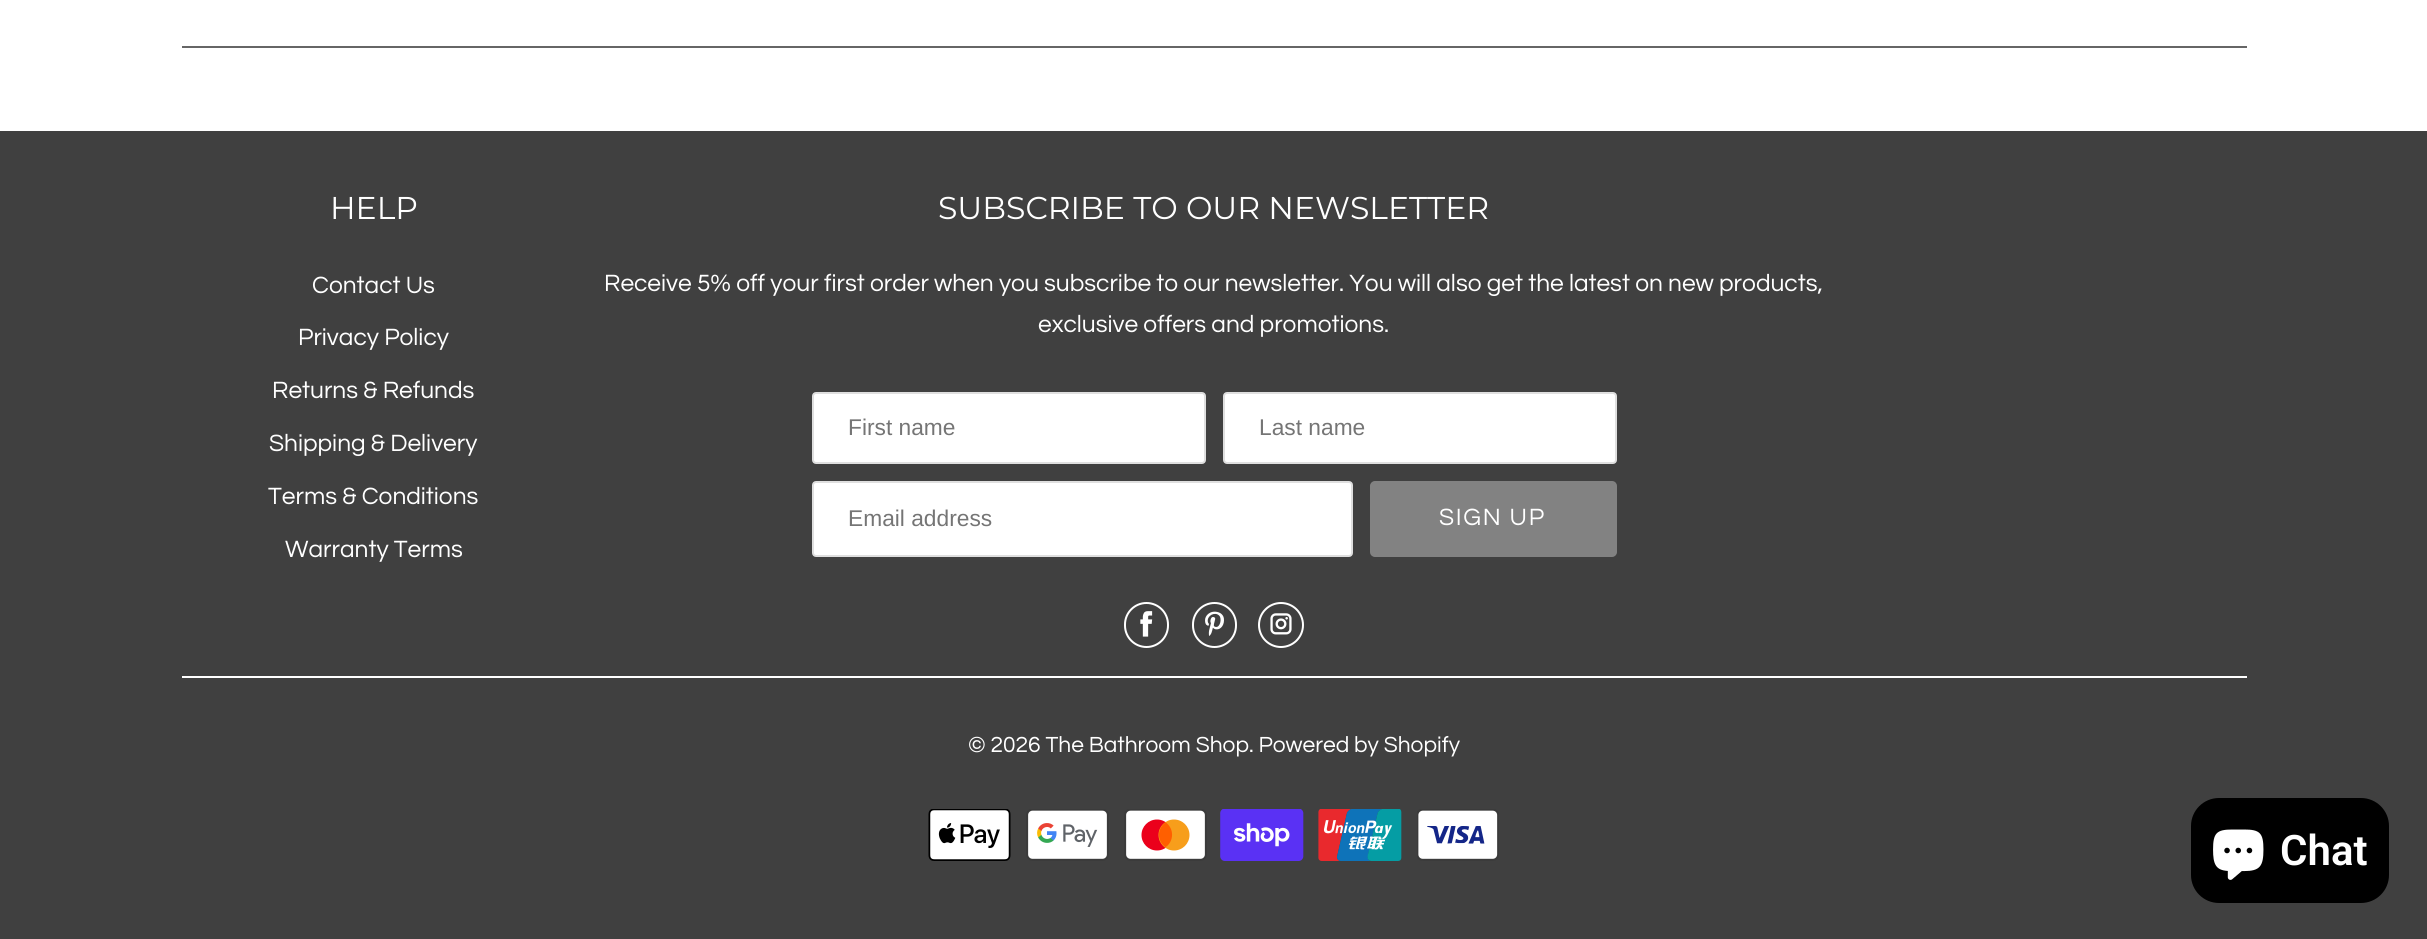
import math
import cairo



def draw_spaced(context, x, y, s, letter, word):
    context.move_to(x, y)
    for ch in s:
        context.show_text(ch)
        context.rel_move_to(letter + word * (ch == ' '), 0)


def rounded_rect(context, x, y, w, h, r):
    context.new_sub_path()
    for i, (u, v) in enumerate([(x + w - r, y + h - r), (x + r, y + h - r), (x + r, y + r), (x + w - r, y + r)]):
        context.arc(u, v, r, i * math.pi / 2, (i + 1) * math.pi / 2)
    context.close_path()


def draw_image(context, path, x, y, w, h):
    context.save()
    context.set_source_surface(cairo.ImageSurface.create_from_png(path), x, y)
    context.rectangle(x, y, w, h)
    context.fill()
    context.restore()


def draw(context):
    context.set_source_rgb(1, 1, 1)
    context.paint()
    context.set_source_rgb(102 / 255, 102 / 255, 102 / 255)
    context.rectangle(182, 46, 2065, 2)
    context.fill()
    context.set_source_rgb(64 / 255, 64 / 255, 64 / 255)
    context.rectangle(0, 131, 2427, 808)
    context.fill()
    context.set_source_rgb(1, 1, 1)
    rounded_rect(context, 813, 393, 392, 70, 3)
    context.fill_preserve()
    context.set_source_rgb(223 / 255, 223 / 255, 223 / 255)
    context.stroke()
    context.set_source_rgb(1, 1, 1)
    rounded_rect(context, 1224, 393, 392, 70, 3)
    context.fill_preserve()
    context.set_source_rgb(223 / 255, 223 / 255, 223 / 255)
    context.stroke()
    context.set_source_rgb(1, 1, 1)
    rounded_rect(context, 813, 482, 539, 74, 3)
    context.fill_preserve()
    context.set_source_rgb(223 / 255, 223 / 255, 223 / 255)
    context.stroke()
    context.set_source_rgb(130 / 255, 130 / 255, 130 / 255)
    rounded_rect(context, 1371, 482, 245, 74, 4)
    context.fill_preserve()
    context.stroke()
    rounded_rect(context, 1125, 603, 43, 44, 21.5)
    context.set_source_rgb(1, 1, 1)
    context.stroke()
    draw_image(context, "images/1.png", 1140, 611, 13, 26)
    rounded_rect(context, 1193, 603, 43, 44, 21.5)
    context.stroke()
    draw_image(context, "images/2.png", 1205, 611, 19, 25)
    context.arc(1281, 625, 22, 0, 2 * math.pi)
    context.stroke()
    draw_image(context, "images/3.png", 1270, 613, 22, 22)
    context.rectangle(182, 676, 2065, 2)
    context.fill()
    draw_image(context, "images/4.png", 928, 809, 83, 52)
    draw_image(context, "images/5.png", 1026, 809, 83, 52)
    draw_image(context, "images/6.png", 1124, 809, 83, 52)
    draw_image(context, "images/7.png", 1220, 809, 84, 52)
    draw_image(context, "images/8.png", 1318, 809, 84, 52)
    draw_image(context, "images/9.png", 1417, 809, 82, 52)
    context.set_source_rgb(0, 0, 0)
    rounded_rect(context, 2191, 798, 198, 105, 28)
    context.fill()
    draw_image(context, "images/10.png", 2213, 829, 51, 51)
    context.select_font_face("Montserrat")
    context.set_font_size(31.5)
    context.set_source_rgb(1, 1, 1)
    context.move_to(330, 219)
    context.show_text("HELP")
    context.select_font_face("Questrial")
    context.set_font_size(24.5)
    context.move_to(312, 293)
    context.show_text("Contact Us")
    context.move_to(298, 345)
    context.show_text("Privacy Policy")
    context.move_to(272, 398)
    context.show_text("Returns & Refunds")
    context.move_to(269, 451)
    context.show_text("Shipping & Delivery")
    context.move_to(268, 504)
    context.show_text("Terms & Conditions")
    context.move_to(285, 557)
    context.show_text("Warranty Terms")
    context.select_font_face("Montserrat")
    context.set_font_size(31.5)
    context.move_to(938, 219)
    context.show_text("SUBSCRIBE TO OUR NEWSLETTER")
    context.select_font_face("Questrial")
    context.set_font_size(24.5)
    context.move_to(604, 291)
    context.show_text("Receive 5% off your first order when you subscribe to our newsletter. You will also get the latest on new products,")
    context.move_to(1038, 332)
    context.show_text("exclusive offers and promotions.")
    context.select_font_face("Liberation Sans")
    context.set_font_size(22.75)
    context.set_source_rgb(117 / 255, 117 / 255, 117 / 255)
    context.move_to(848, 435)
    context.show_text("First name")
    context.move_to(1259, 435)
    context.show_text("Last name")
    context.move_to(848, 526)
    context.show_text("Email address")
    context.select_font_face("Questrial")
    context.set_font_size(24.5)
    context.set_source_rgb(1, 1, 1)
    draw_spaced(context, 1439, 525, "SIGN UP", 1.75, 0)
    context.set_font_size(22.75)
    context.move_to(968, 752)
    context.show_text("© 2026 The Bathroom Shop. Powered by Shopify")
    context.select_font_face("Roboto SemiBold")
    context.set_font_size(42)
    context.move_to(2280, 865)
    context.show_text("Chat")


surface = cairo.ImageSurface(cairo.Format.RGB24, 2427, 939)
context = cairo.Context(surface)
options = cairo.FontOptions()
options.set_hint_metrics(cairo.HintMetrics.OFF)
options.set_hint_style(cairo.HintStyle.NONE)
context.set_font_options(options)
context.set_miter_limit(4)
draw(context)
surface.write_to_png("out.png")
